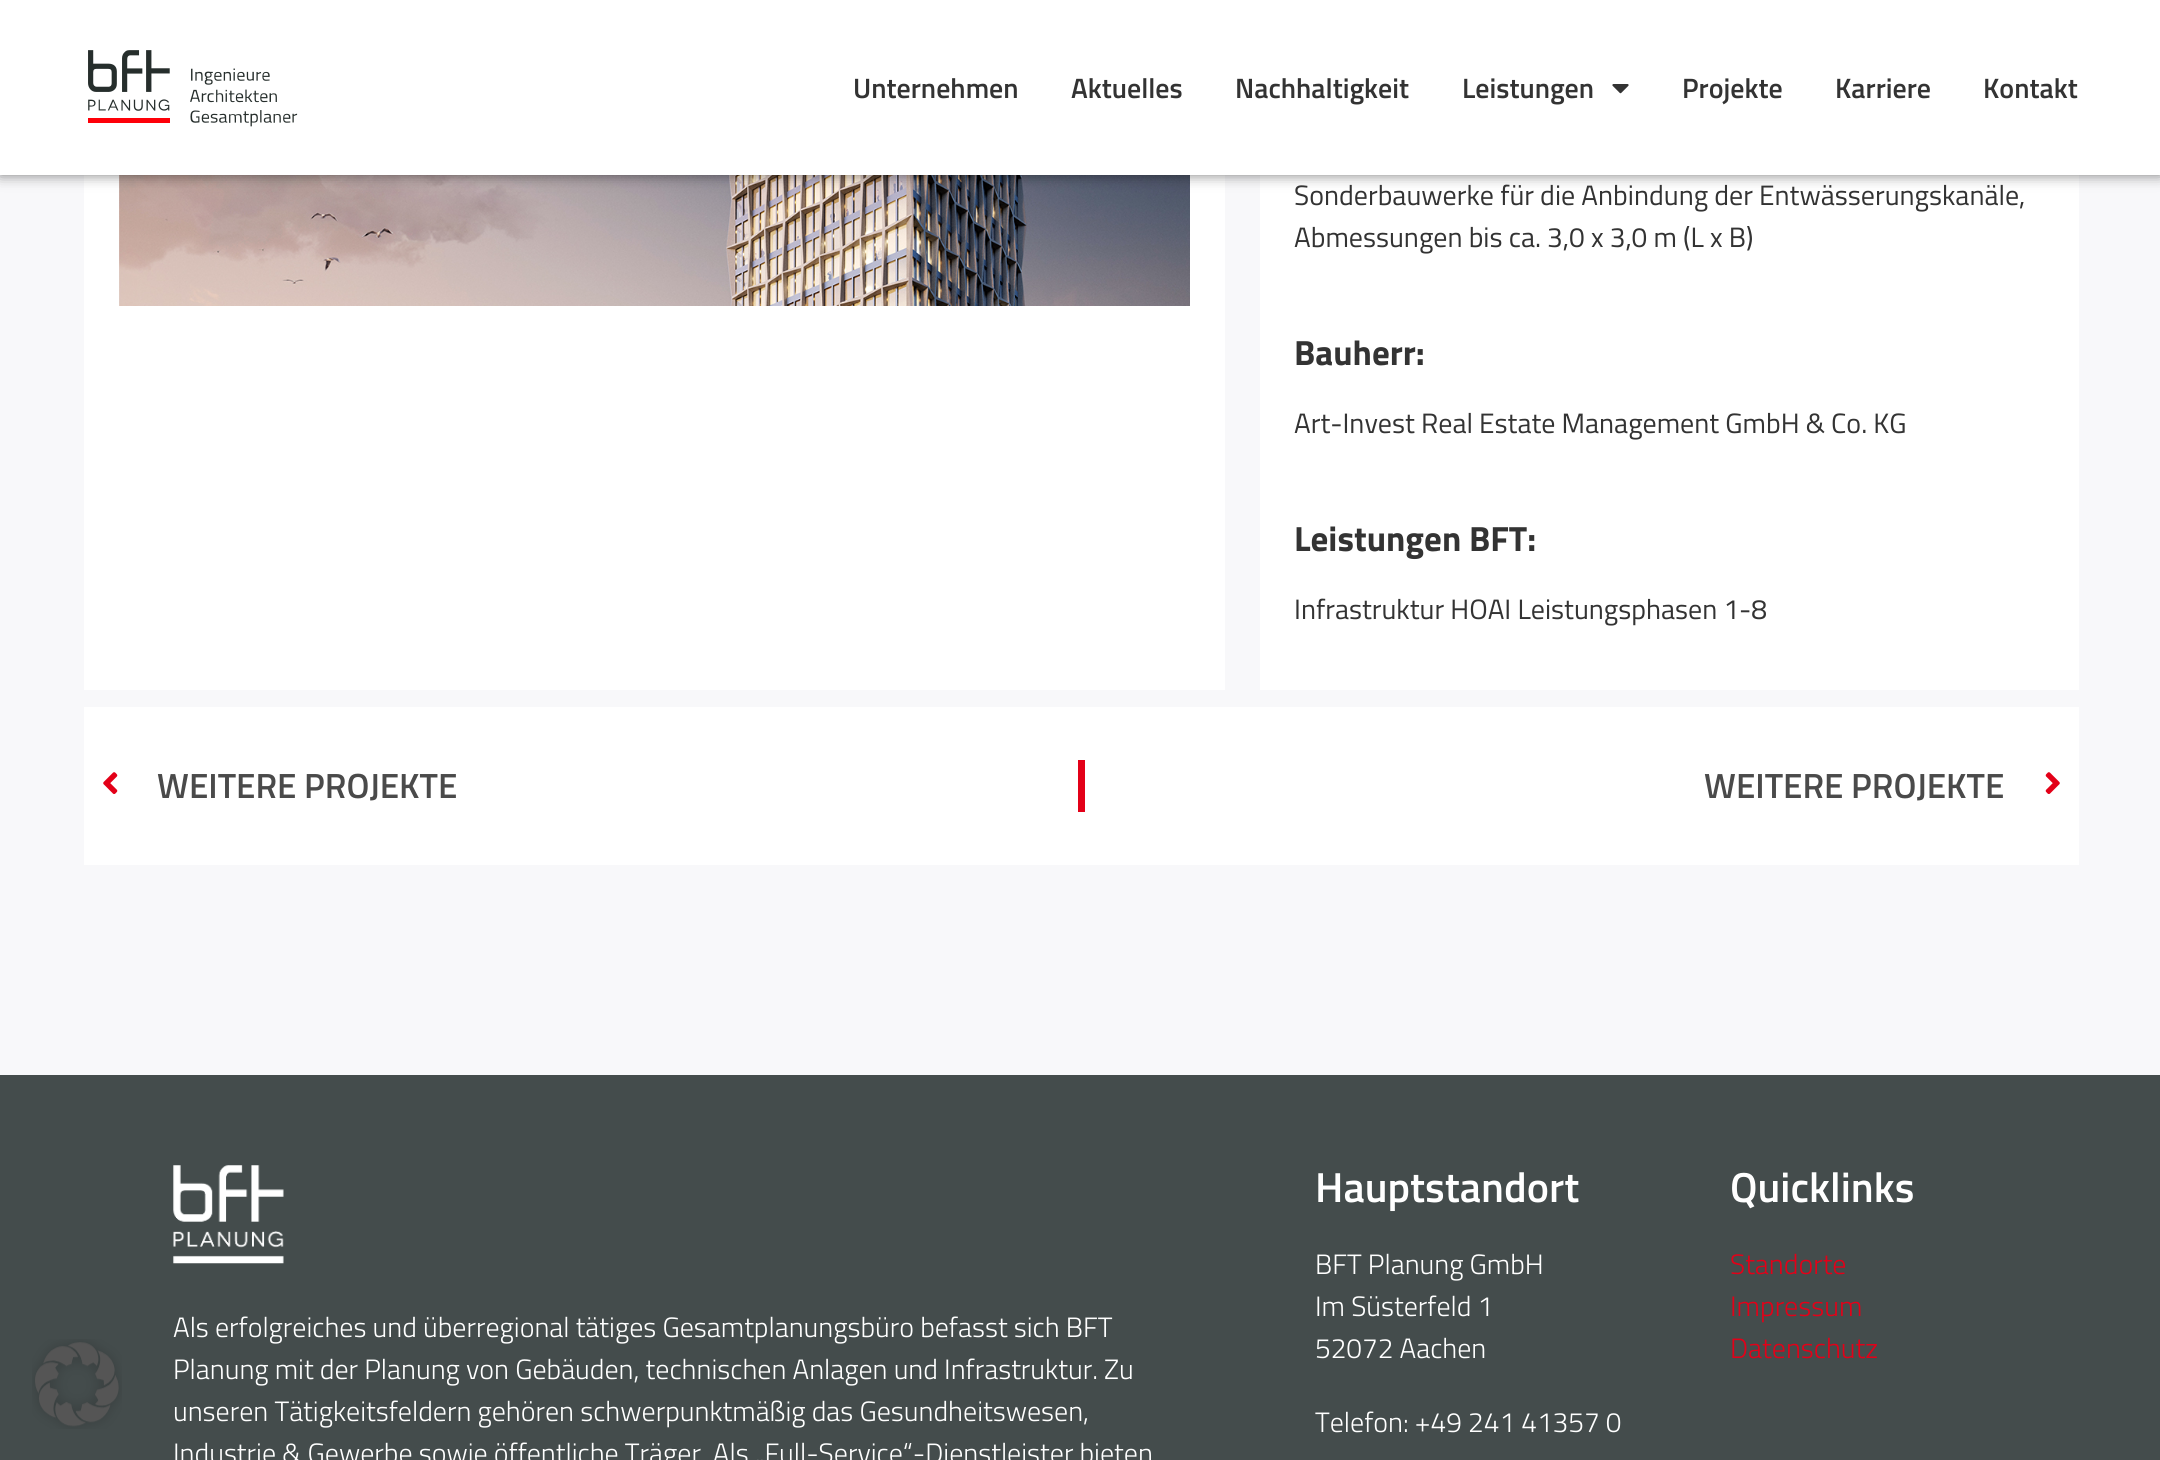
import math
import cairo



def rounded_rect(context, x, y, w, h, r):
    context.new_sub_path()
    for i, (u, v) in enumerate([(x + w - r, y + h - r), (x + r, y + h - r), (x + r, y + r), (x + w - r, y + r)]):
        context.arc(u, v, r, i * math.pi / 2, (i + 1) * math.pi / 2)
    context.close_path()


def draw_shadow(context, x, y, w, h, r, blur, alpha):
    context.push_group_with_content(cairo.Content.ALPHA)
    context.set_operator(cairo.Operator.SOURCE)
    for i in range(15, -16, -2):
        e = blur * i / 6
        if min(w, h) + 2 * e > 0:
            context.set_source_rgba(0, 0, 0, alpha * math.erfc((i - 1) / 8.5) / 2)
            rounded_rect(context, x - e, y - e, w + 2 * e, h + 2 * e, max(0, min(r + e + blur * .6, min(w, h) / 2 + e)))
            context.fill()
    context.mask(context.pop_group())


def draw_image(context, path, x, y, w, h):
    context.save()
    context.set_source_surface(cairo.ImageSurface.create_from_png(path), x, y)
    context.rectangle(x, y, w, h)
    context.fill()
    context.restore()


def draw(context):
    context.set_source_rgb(248 / 255, 248 / 255, 250 / 255)
    context.paint()
    context.set_source_rgb(1, 1, 1)
    context.rectangle(84, 175, 1141, 515)
    context.fill()
    draw_image(context, "images/3.png", 119, 175, 1071, 131)
    context.rectangle(1260, 175, 819, 515)
    context.fill()
    context.set_source_rgb(0, 0, 0)
    draw_shadow(context, 0, 0, 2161, 175, 0, 7, 0.5)
    context.set_source_rgb(1, 1, 1)
    context.rectangle(0, 0, 2160, 175)
    context.fill()
    draw_image(context, "images/1.png", 88, 50, 210, 77)
    draw_image(context, "images/2.png", 1612, 84, 17, 10)
    context.rectangle(84, 707, 1995, 158)
    context.fill()
    draw_image(context, "images/4.png", 103, 772, 15, 22)
    context.set_source_rgb(227 / 255, 0, 24 / 255)
    context.rectangle(1078, 760, 7, 52)
    context.fill()
    draw_image(context, "images/5.png", 2045, 772, 15, 22)
    context.set_source_rgb(68 / 255, 76 / 255, 76 / 255)
    context.rectangle(0, 1075, 2160, 385)
    context.fill()
    draw_image(context, "images/6.png", 32, 1339, 90, 90)
    draw_image(context, "images/7.png", 173, 1165, 111, 99)
    context.select_font_face("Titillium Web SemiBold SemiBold")
    context.set_font_size(28)
    context.set_source_rgb(51 / 255, 51 / 255, 51 / 255)
    context.move_to(853, 98)
    context.show_text("Unternehmen")
    context.move_to(1071, 98)
    context.show_text("Aktuelles")
    context.move_to(1235, 98)
    context.show_text("Nachhaltigkeit")
    context.move_to(1462, 98)
    context.show_text("Leistungen")
    context.move_to(1682, 98)
    context.show_text("Projekte")
    context.move_to(1835, 98)
    context.show_text("Karriere")
    context.move_to(1983, 98)
    context.show_text("Kontakt")
    context.select_font_face("Titillium Web")
    context.move_to(1294, 205)
    context.show_text("Sonderbauwerke für die Anbindung der Entwässerungskanäle,")
    context.move_to(1294, 247)
    context.show_text("Abmessungen bis ca. 3,0 x 3,0 m (L x B)")
    context.select_font_face("Titillium Web", cairo.FontSlant.NORMAL, cairo.FontWeight.BOLD)
    context.set_font_size(35)
    context.move_to(1294, 365)
    context.show_text("Bauherr:")
    context.select_font_face("Titillium Web")
    context.set_font_size(28)
    context.move_to(1294, 433)
    context.show_text("Art-Invest Real Estate Management GmbH & Co. KG")
    context.select_font_face("Titillium Web", cairo.FontSlant.NORMAL, cairo.FontWeight.BOLD)
    context.set_font_size(35)
    context.move_to(1294, 551)
    context.show_text("Leistungen BFT:")
    context.select_font_face("Titillium Web")
    context.set_font_size(28)
    context.move_to(1294, 619)
    context.show_text("Infrastruktur HOAI Leistungsphasen 1-8")
    context.select_font_face("Titillium Web SemiBold SemiBold")
    context.set_font_size(35)
    context.set_source_rgb(74 / 255, 74 / 255, 74 / 255)
    context.move_to(157, 798)
    context.show_text("WEITERE PROJEKTE")
    context.move_to(1704, 798)
    context.show_text("WEITERE PROJEKTE")
    context.set_font_size(42)
    context.set_source_rgb(1, 1, 1)
    context.move_to(1315, 1202)
    context.show_text("Hauptstandort")
    context.select_font_face("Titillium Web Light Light")
    context.set_font_size(28)
    context.move_to(1315, 1274)
    context.show_text("BFT Planung GmbH")
    context.move_to(1315, 1316)
    context.show_text("Im Süsterfeld 1")
    context.move_to(1315, 1358)
    context.show_text("52072 Aachen")
    context.move_to(1315, 1432)
    context.show_text("Telefon: +49 241 41357 0")
    context.select_font_face("Titillium Web SemiBold SemiBold")
    context.set_font_size(42)
    context.move_to(1730, 1202)
    context.show_text("Quicklinks")
    context.select_font_face("Titillium Web Light Light")
    context.set_font_size(28)
    context.set_source_rgb(227 / 255, 0, 24 / 255)
    context.move_to(1730, 1274)
    context.show_text("Standorte")
    context.move_to(1730, 1316)
    context.show_text("Impressum")
    context.move_to(1730, 1358)
    context.show_text("Datenschutz")
    context.set_source_rgb(1, 1, 1)
    context.move_to(173, 1337)
    context.show_text("Als erfolgreiches und überregional tätiges Gesamtplanungsbüro befasst sich BFT")
    context.move_to(173, 1379)
    context.show_text("Planung mit der Planung von Gebäuden, technischen Anlagen und Infrastruktur. Zu")
    context.move_to(173, 1421)
    context.show_text("unseren Tätigkeitsfeldern gehören schwerpunktmäßig das Gesundheitswesen,")
    context.move_to(173, 1463)
    context.show_text("Industrie & Gewerbe sowie öffentliche Träger. Als „Full-Service“-Dienstleister bieten")


surface = cairo.ImageSurface(cairo.Format.RGB24, 2160, 1460)
context = cairo.Context(surface)
options = cairo.FontOptions()
options.set_hint_metrics(cairo.HintMetrics.OFF)
options.set_hint_style(cairo.HintStyle.NONE)
context.set_font_options(options)
context.set_miter_limit(4)
draw(context)
surface.write_to_png("out.png")
